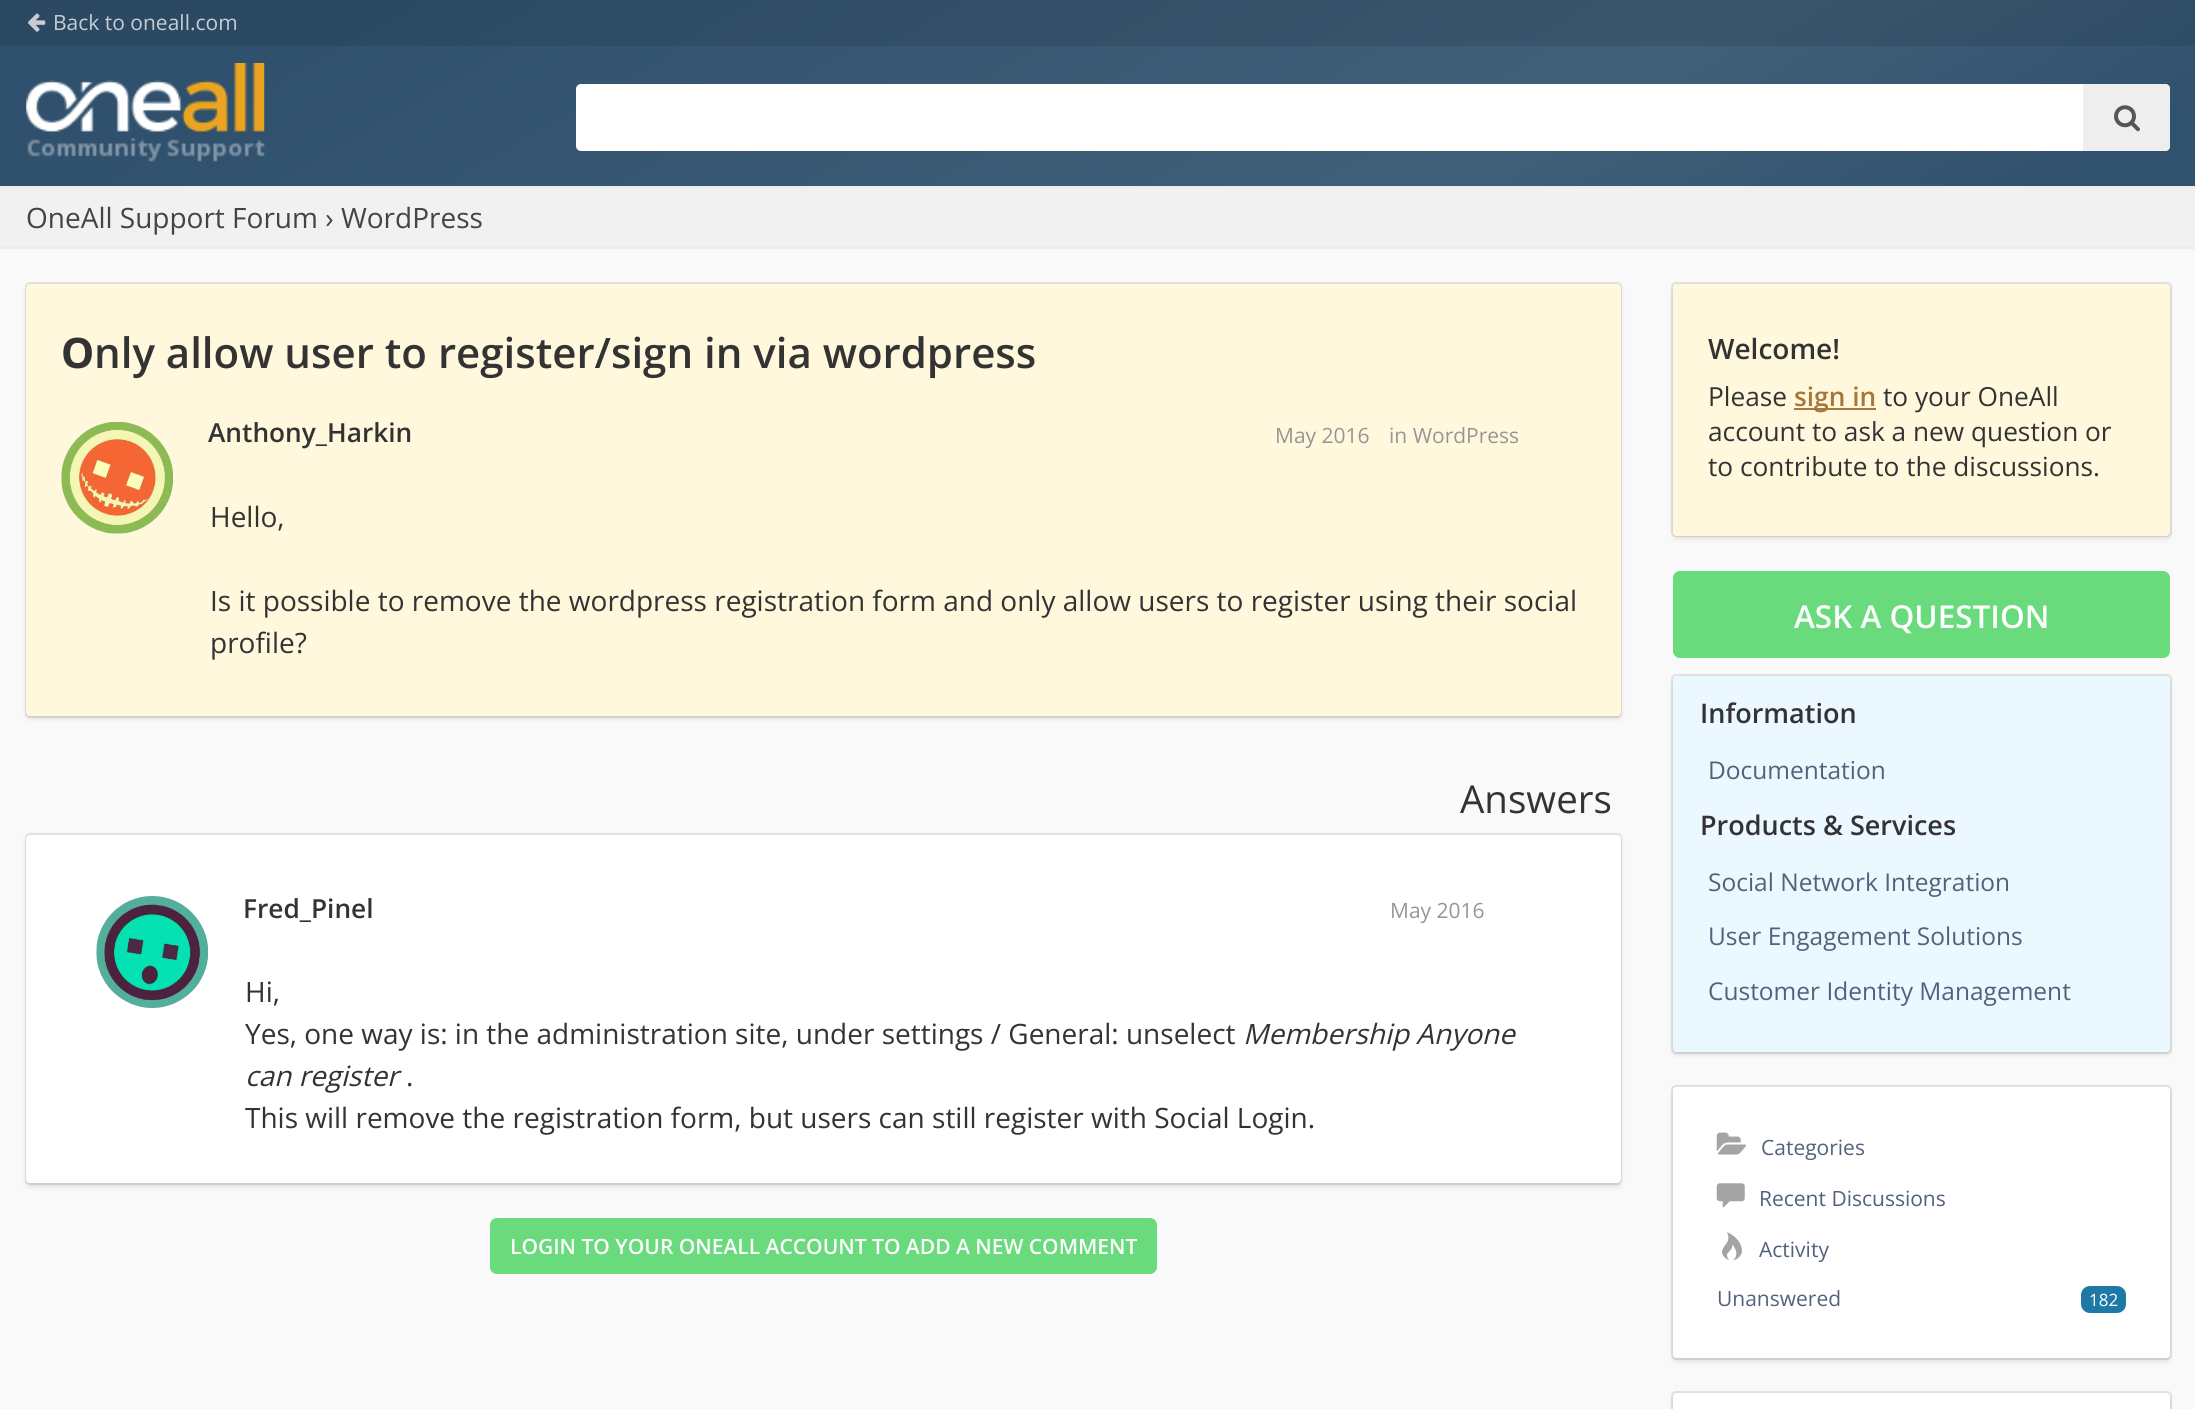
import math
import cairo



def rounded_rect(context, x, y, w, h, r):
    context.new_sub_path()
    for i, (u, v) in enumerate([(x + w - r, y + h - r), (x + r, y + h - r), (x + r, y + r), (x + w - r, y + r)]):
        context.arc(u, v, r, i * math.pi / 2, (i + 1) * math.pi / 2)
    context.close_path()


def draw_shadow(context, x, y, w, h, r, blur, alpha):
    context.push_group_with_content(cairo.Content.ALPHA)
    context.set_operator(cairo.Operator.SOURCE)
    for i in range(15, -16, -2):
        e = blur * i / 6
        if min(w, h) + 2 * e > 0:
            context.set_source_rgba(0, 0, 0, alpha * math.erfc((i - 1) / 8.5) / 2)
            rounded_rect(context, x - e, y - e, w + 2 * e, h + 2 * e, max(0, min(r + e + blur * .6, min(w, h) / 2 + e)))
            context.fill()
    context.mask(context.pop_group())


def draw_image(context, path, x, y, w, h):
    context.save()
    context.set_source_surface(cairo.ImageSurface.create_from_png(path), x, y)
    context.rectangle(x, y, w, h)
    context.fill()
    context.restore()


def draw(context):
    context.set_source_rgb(249 / 255, 249 / 255, 249 / 255)
    context.paint()
    gradient = cairo.LinearGradient(783, -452, 1413, 638)
    gradient.add_color_stop_rgba(0.15, 48 / 255, 81 / 255, 109 / 255, 1)
    gradient.add_color_stop_rgba(0.7, 64 / 255, 95 / 255, 121 / 255, 1)
    gradient.add_color_stop_rgba(0.94, 49 / 255, 82 / 255, 110 / 255, 1)
    context.set_source(gradient)
    context.rectangle(0, 46, 2195, 140)
    context.fill()
    gradient = cairo.LinearGradient(783, -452, 1413, 638)
    gradient.add_color_stop_rgba(0.15, 43 / 255, 73 / 255, 98 / 255, 1)
    gradient.add_color_stop_rgba(0.7, 58 / 255, 86 / 255, 109 / 255, 1)
    gradient.add_color_stop_rgba(0.94, 44 / 255, 74 / 255, 99 / 255, 1)
    context.set_source(gradient)
    context.rectangle(0, 0, 2195, 46)
    context.fill()
    draw_image(context, "images/1.png", 28, 13, 18, 19)
    draw_image(context, "images/2.png", 26, 63, 239, 99)
    context.set_source_rgb(1, 1, 1)
    rounded_rect(context, 576, 84, 1594, 67, 5)
    context.fill()
    context.set_source_rgb(238 / 255, 238 / 255, 238 / 255)
    context.new_path()
    context.move_to(2083, 84)
    context.line_to(2165, 84)
    context.curve_to(2168, 84, 2170, 86, 2170, 89)
    context.line_to(2170, 146)
    context.curve_to(2170, 149, 2168, 151, 2165, 151)
    context.line_to(2083, 151)
    context.close_path()
    context.fill()
    draw_image(context, "images/3.png", 2114, 105, 26, 27)
    context.set_source_rgb(241 / 255, 241 / 255, 241 / 255)
    context.rectangle(0, 188, 2195, 59)
    context.fill()
    context.set_source_rgb(235 / 255, 237 / 255, 237 / 255)
    context.rectangle(0, 186, 2195, 2)
    context.fill()
    context.rectangle(0, 247, 2195, 2)
    context.fill()
    rounded_rect(context, 26, 283, 1595, 434, 4)
    context.set_source_rgb(225 / 255, 225 / 255, 225 / 255)
    context.stroke()
    context.set_source_rgb(10 / 255, 10 / 255, 10 / 255)
    draw_shadow(context, 26, 287, 1595, 432, 4, 2.5, 0.1)
    context.set_source_rgb(1, 248 / 255, 220 / 255)
    rounded_rect(context, 26, 284, 1595, 432, 4)
    context.fill()
    draw_image(context, "images/4.png", 61, 421, 113, 113)
    rounded_rect(context, 26, 834, 1595, 350, 4)
    context.set_source_rgb(225 / 255, 225 / 255, 225 / 255)
    context.stroke()
    context.set_source_rgb(10 / 255, 10 / 255, 10 / 255)
    draw_shadow(context, 26, 838, 1595, 349, 4, 2.5, 0.1)
    context.set_source_rgb(1, 1, 1)
    rounded_rect(context, 26, 835, 1595, 348, 4)
    context.fill()
    draw_image(context, "images/5.png", 96, 896, 113, 112)
    context.set_source_rgb(105 / 255, 219 / 255, 124 / 255)
    rounded_rect(context, 491, 1219, 665, 54, 6)
    context.fill_preserve()
    context.stroke()
    rounded_rect(context, 1672, 283, 499, 253, 4)
    context.set_source_rgb(225 / 255, 225 / 255, 225 / 255)
    context.stroke()
    context.set_source_rgb(10 / 255, 10 / 255, 10 / 255)
    draw_shadow(context, 1673, 287, 497, 252, 4, 2.5, 0.1)
    context.set_source_rgb(1, 248 / 255, 220 / 255)
    rounded_rect(context, 1673, 284, 497, 252, 4)
    context.fill()
    context.set_source_rgb(167 / 255, 119 / 255, 58 / 255)
    context.rectangle(1794, 408, 82, 2)
    context.fill()
    context.set_source_rgb(105 / 255, 219 / 255, 124 / 255)
    rounded_rect(context, 1674, 572, 495, 85, 6)
    context.fill_preserve()
    context.stroke()
    rounded_rect(context, 1672, 675, 499, 378, 4)
    context.set_source_rgb(225 / 255, 225 / 255, 225 / 255)
    context.stroke()
    context.set_source_rgb(10 / 255, 10 / 255, 10 / 255)
    draw_shadow(context, 1673, 679, 497, 376, 4, 2.5, 0.1)
    context.set_source_rgb(236 / 255, 248 / 255, 1)
    rounded_rect(context, 1673, 676, 497, 376, 4)
    context.fill()
    rounded_rect(context, 1672, 1086, 499, 273, 4)
    context.set_source_rgb(225 / 255, 225 / 255, 225 / 255)
    context.stroke()
    context.set_source_rgb(10 / 255, 10 / 255, 10 / 255)
    draw_shadow(context, 1673, 1090, 497, 272, 4, 2.5, 0.1)
    context.set_source_rgb(1, 1, 1)
    rounded_rect(context, 1673, 1087, 497, 271, 4)
    context.fill()
    draw_image(context, "images/6.png", 1716, 1132, 31, 23)
    draw_image(context, "images/7.png", 1716, 1183, 29, 25)
    draw_image(context, "images/8.png", 1722, 1232, 20, 28)
    context.set_source_rgb(30 / 255, 121 / 255, 167 / 255)
    rounded_rect(context, 2081, 1286, 45, 27, 9)
    context.fill()
    rounded_rect(context, 1672, 1392, 499, 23, 4)
    context.set_source_rgb(225 / 255, 225 / 255, 225 / 255)
    context.stroke()
    context.set_source_rgb(10 / 255, 10 / 255, 10 / 255)
    draw_shadow(context, 1673, 1397, 497, 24, 4, 2.5, 0.1)
    context.set_source_rgb(1, 1, 1)
    rounded_rect(context, 1673, 1393, 497, 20, 4)
    context.fill()
    context.select_font_face("Open Sans")
    context.set_font_size(21)
    context.set_source_rgb(199 / 255, 205 / 255, 210 / 255)
    context.move_to(53, 30)
    context.show_text("Back to oneall.com")
    context.set_font_size(28)
    context.set_source_rgb(68 / 255, 68 / 255, 68 / 255)
    context.move_to(26, 228)
    context.show_text("OneAll Support Forum › WordPress")
    context.select_font_face("Noto Sans", cairo.FontSlant.NORMAL, cairo.FontWeight.BOLD)
    context.set_font_size(42)
    context.set_source_rgb(51 / 255, 51 / 255, 51 / 255)
    context.move_to(61, 368)
    context.show_text("O")
    context.select_font_face("Open Sans SemiBold")
    context.move_to(94, 368)
    context.show_text("nly allow user to register/sign in via wordpress")
    context.set_font_size(26.25)
    context.move_to(208, 442)
    context.show_text("Anthony_Harkin")
    context.select_font_face("Open Sans")
    context.set_font_size(21)
    context.set_source_rgb(150 / 255, 150 / 255, 150 / 255)
    context.move_to(1275, 443)
    context.show_text("May 2016")
    context.move_to(1389, 443)
    context.show_text("in WordPress")
    context.set_font_size(28)
    context.set_source_rgb(51 / 255, 51 / 255, 51 / 255)
    context.move_to(210, 527)
    context.show_text("Hello,")
    context.move_to(210, 611)
    context.show_text("Is it possible to remove the wordpress registration form and only allow users to register using their social")
    context.move_to(210, 653)
    context.show_text("profile?")
    context.set_font_size(38.5)
    context.move_to(1460, 813)
    context.show_text("Answers")
    context.select_font_face("Open Sans SemiBold")
    context.set_font_size(26.25)
    context.move_to(243, 918)
    context.show_text("Fred_Pinel")
    context.select_font_face("Open Sans")
    context.set_font_size(21)
    context.set_source_rgb(150 / 255, 150 / 255, 150 / 255)
    context.move_to(1390, 918)
    context.show_text("May 2016")
    context.set_font_size(28)
    context.set_source_rgb(51 / 255, 51 / 255, 51 / 255)
    context.move_to(245, 1002)
    context.show_text("Hi,")
    context.move_to(245, 1044)
    context.show_text("Yes, one way is: in the administration site, under settings / General: unselect")
    context.select_font_face("Open Sans", cairo.FontSlant.ITALIC)
    context.move_to(1243, 1044)
    context.show_text("Membership Anyone")
    context.move_to(245, 1086)
    context.show_text("can register")
    context.select_font_face("Open Sans")
    context.move_to(406, 1086)
    context.show_text(".")
    context.move_to(245, 1128)
    context.show_text("This will remove the registration form, but users can still register with Social Login.")
    context.select_font_face("Open Sans SemiBold")
    context.set_font_size(21)
    context.set_source_rgb(1, 1, 1)
    context.move_to(510, 1254)
    context.show_text("LOGIN TO YOUR ONEALL ACCOUNT TO ADD A NEW COMMENT")
    context.set_font_size(28)
    context.set_source_rgb(51 / 255, 51 / 255, 51 / 255)
    context.move_to(1708, 359)
    context.show_text("Welcome!")
    context.select_font_face("Open Sans")
    context.set_font_size(26.25)
    context.move_to(1708, 406)
    context.show_text("Please")
    context.select_font_face("Open Sans SemiBold")
    context.set_source_rgb(167 / 255, 119 / 255, 58 / 255)
    context.move_to(1794, 406)
    context.show_text("sign in")
    context.select_font_face("Open Sans")
    context.set_source_rgb(51 / 255, 51 / 255, 51 / 255)
    context.move_to(1883, 406)
    context.show_text("to your OneAll")
    context.move_to(1708, 441)
    context.show_text("account to ask a new question or")
    context.move_to(1708, 476)
    context.show_text("to contribute to the discussions.")
    context.select_font_face("Open Sans SemiBold")
    context.set_font_size(31.5)
    context.set_source_rgb(1, 1, 1)
    context.move_to(1794, 628)
    context.show_text("ASK A QUESTION")
    context.set_font_size(27)
    context.set_source_rgb(51 / 255, 51 / 255, 51 / 255)
    context.move_to(1700, 723)
    context.show_text("Information")
    context.select_font_face("Open Sans")
    context.set_font_size(24.5)
    context.set_source_rgb(83 / 255, 98 / 255, 123 / 255)
    context.move_to(1708, 779)
    context.show_text("Documentation")
    context.select_font_face("Open Sans SemiBold")
    context.set_font_size(27)
    context.set_source_rgb(51 / 255, 51 / 255, 51 / 255)
    context.move_to(1700, 835)
    context.show_text("Products & Services")
    context.select_font_face("Open Sans")
    context.set_font_size(24.5)
    context.set_source_rgb(83 / 255, 98 / 255, 123 / 255)
    context.move_to(1708, 891)
    context.show_text("Social Network Integration")
    context.move_to(1708, 945)
    context.show_text("User Engagement Solutions")
    context.move_to(1708, 1000)
    context.show_text("Customer Identity Management")
    context.set_font_size(21)
    context.move_to(1761, 1155)
    context.show_text("Categories")
    context.move_to(1759, 1206)
    context.show_text("Recent Discussions")
    context.move_to(1759, 1257)
    context.show_text("Activity")
    context.move_to(1717, 1306)
    context.show_text("Unanswered")
    context.set_font_size(17)
    context.set_source_rgb(1, 1, 1)
    context.move_to(2089, 1306)
    context.show_text("182")


surface = cairo.ImageSurface(cairo.Format.RGB24, 2195, 1409)
context = cairo.Context(surface)
options = cairo.FontOptions()
options.set_hint_metrics(cairo.HintMetrics.OFF)
options.set_hint_style(cairo.HintStyle.NONE)
context.set_font_options(options)
context.set_miter_limit(4)
draw(context)
surface.write_to_png("out.png")
